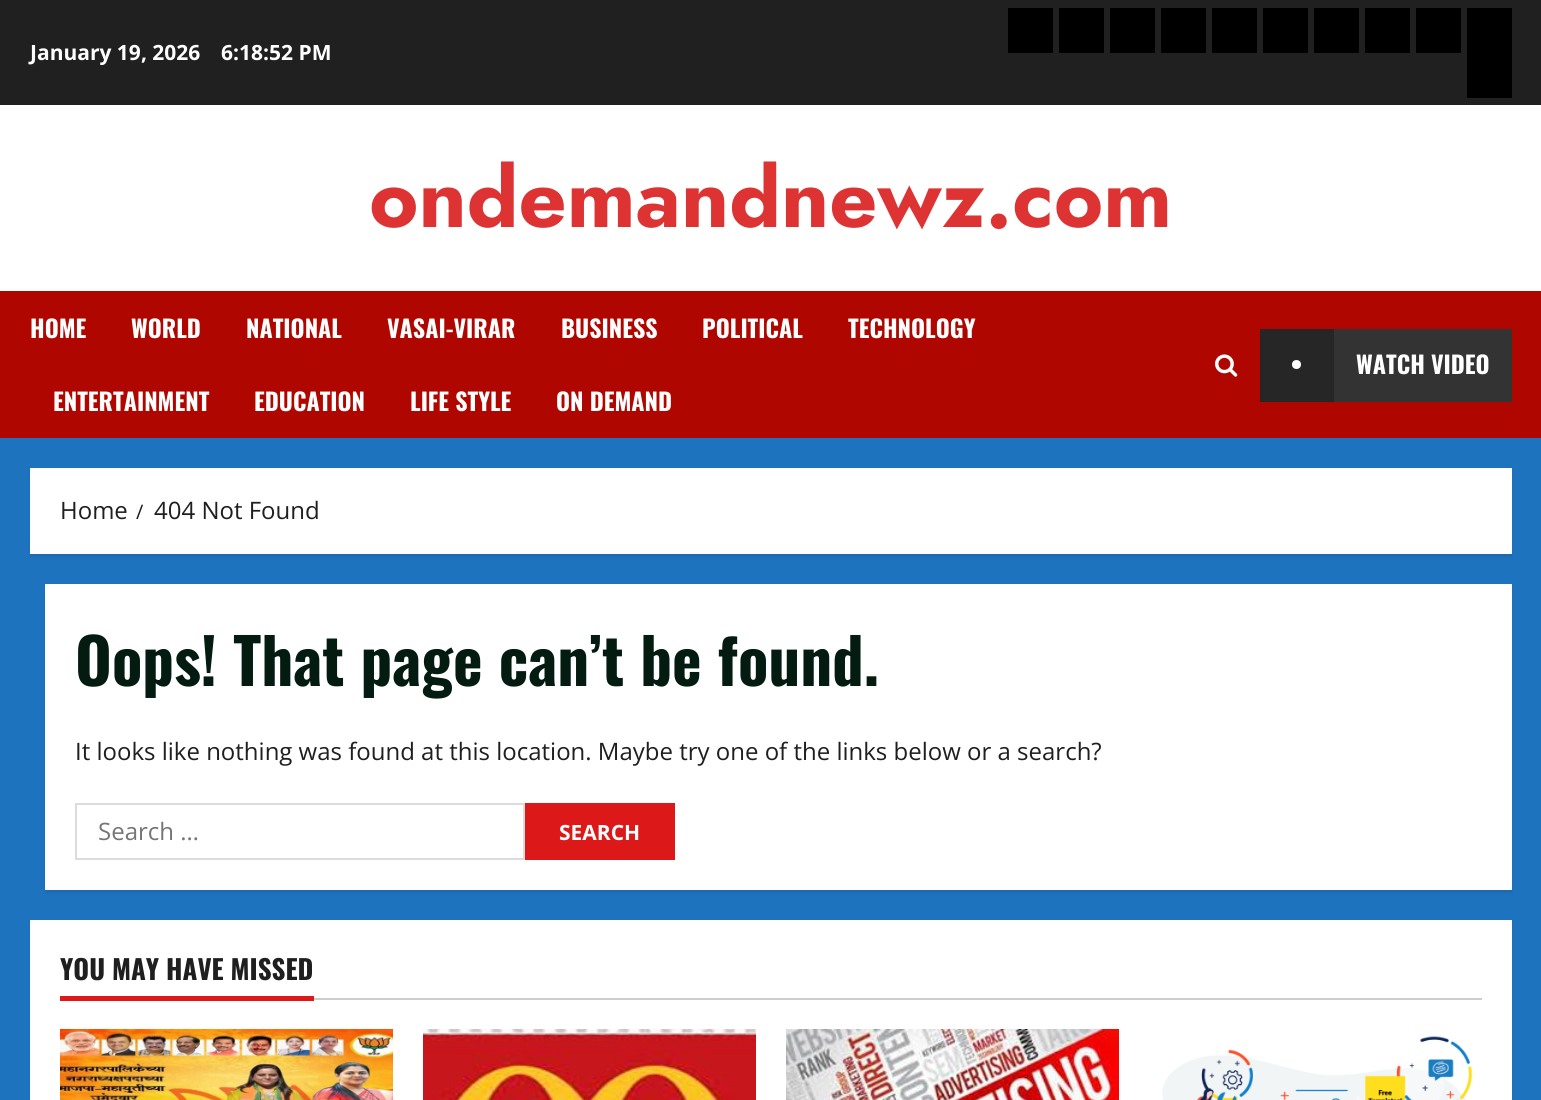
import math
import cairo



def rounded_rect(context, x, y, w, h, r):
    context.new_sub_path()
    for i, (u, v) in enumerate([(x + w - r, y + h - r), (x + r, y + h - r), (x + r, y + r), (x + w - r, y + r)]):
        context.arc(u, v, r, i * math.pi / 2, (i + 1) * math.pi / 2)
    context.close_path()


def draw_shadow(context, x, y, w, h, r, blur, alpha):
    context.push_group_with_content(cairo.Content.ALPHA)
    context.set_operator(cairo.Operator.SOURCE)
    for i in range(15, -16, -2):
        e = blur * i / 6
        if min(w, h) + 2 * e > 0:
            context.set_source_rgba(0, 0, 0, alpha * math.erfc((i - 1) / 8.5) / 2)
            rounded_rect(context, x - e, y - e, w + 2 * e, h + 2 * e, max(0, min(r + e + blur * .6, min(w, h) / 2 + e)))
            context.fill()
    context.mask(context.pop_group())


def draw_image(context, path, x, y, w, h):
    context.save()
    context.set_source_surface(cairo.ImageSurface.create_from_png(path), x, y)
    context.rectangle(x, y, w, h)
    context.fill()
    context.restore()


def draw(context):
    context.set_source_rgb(30 / 255, 115 / 255, 190 / 255)
    context.paint()
    context.set_source_rgb(32 / 255, 32 / 255, 32 / 255)
    context.rectangle(0, 0, 1541, 105)
    context.fill()
    context.set_source_rgb(0, 0, 0)
    context.rectangle(1008, 8, 45, 45)
    context.fill()
    context.rectangle(1059, 8, 45, 45)
    context.fill()
    context.rectangle(1110, 8, 45, 45)
    context.fill()
    context.rectangle(1161, 8, 45, 45)
    context.fill()
    context.rectangle(1212, 8, 45, 45)
    context.fill()
    context.rectangle(1263, 8, 45, 45)
    context.fill()
    context.rectangle(1314, 8, 45, 45)
    context.fill()
    context.rectangle(1365, 8, 45, 45)
    context.fill()
    context.rectangle(1416, 8, 45, 45)
    context.fill()
    context.rectangle(1467, 8, 45, 90)
    context.fill()
    context.set_source_rgb(1, 1, 1)
    context.rectangle(0, 105, 1541, 186)
    context.fill()
    context.set_source_rgb(175 / 255, 7 / 255, 0)
    context.rectangle(0, 291, 1541, 147)
    context.fill()
    draw_image(context, "images/1.png", 1215, 354, 23, 23)
    context.set_source_rgb(51 / 255, 51 / 255, 51 / 255)
    context.rectangle(1334, 329, 178, 73)
    context.fill()
    context.set_source_rgb(38 / 255, 38 / 255, 38 / 255)
    context.rectangle(1260, 329, 74, 73)
    context.fill()
    context.set_source_rgb(1, 1, 1)
    context.arc(1296.5, 364.5, 4.5, 0, 2 * math.pi)
    context.fill()
    context.set_source_rgb(0, 0, 0)
    draw_shadow(context, 30, 471, 1482, 86, 0, 1.5, 0.08)
    context.set_source_rgb(1, 1, 1)
    context.rectangle(30, 468, 1482, 86)
    context.fill()
    context.set_source_rgb(0, 0, 0)
    draw_shadow(context, 45, 587, 1467, 306, 0, 1.5, 0.08)
    context.set_source_rgb(1, 1, 1)
    context.rectangle(45, 584, 1467, 306)
    context.fill()
    context.rectangle(76, 804, 448, 55)
    context.set_source_rgb(220 / 255, 220 / 255, 220 / 255)
    context.stroke()
    context.set_source_rgb(221 / 255, 24 / 255, 24 / 255)
    context.rectangle(525, 803, 150, 57)
    context.fill()
    context.set_source_rgb(0, 0, 0)
    draw_shadow(context, 30, 923, 1482, 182, 0, 1.5, 0.08)
    context.set_source_rgb(1, 1, 1)
    context.rectangle(30, 920, 1482, 180)
    context.fill()
    context.set_source_rgb(204 / 255, 204 / 255, 204 / 255)
    context.rectangle(314, 998, 1168, 2)
    context.fill()
    context.set_source_rgb(221 / 255, 24 / 255, 24 / 255)
    context.rectangle(60, 996, 254, 5)
    context.fill()
    draw_image(context, "images/2.png", 60, 1029, 333, 71)
    draw_image(context, "images/3.png", 423, 1029, 333, 71)
    draw_image(context, "images/4.png", 786, 1029, 333, 71)
    draw_image(context, "images/5.png", 1149, 1029, 333, 71)
    context.select_font_face("Open Sans", cairo.FontSlant.NORMAL, cairo.FontWeight.BOLD)
    context.set_font_size(21)
    context.set_source_rgb(1, 1, 1)
    context.move_to(30, 60)
    context.show_text("January 19, 2026")
    context.move_to(221, 60)
    context.show_text("6:18:52 PM")
    context.select_font_face("Jost", cairo.FontSlant.NORMAL, cairo.FontWeight.BOLD)
    context.set_font_size(84)
    context.set_source_rgb(221 / 255, 51 / 255, 51 / 255)
    context.move_to(369, 227)
    context.show_text("ondemandnewz.com")
    context.select_font_face("Oswald", cairo.FontSlant.NORMAL, cairo.FontWeight.BOLD)
    context.set_font_size(24)
    context.set_source_rgb(1, 1, 1)
    context.move_to(30, 338)
    context.show_text("HOME")
    context.move_to(131, 338)
    context.show_text("WORLD")
    context.move_to(246, 338)
    context.show_text("NATIONAL")
    context.move_to(387, 338)
    context.show_text("VASAI-VIRAR")
    context.move_to(561, 338)
    context.show_text("BUSINESS")
    context.move_to(702, 338)
    context.show_text("POLITICAL")
    context.move_to(848, 338)
    context.show_text("TECHNOLOGY")
    context.move_to(53, 411)
    context.show_text("ENTERTAINMENT")
    context.move_to(254, 411)
    context.show_text("EDUCATION")
    context.move_to(410, 411)
    context.show_text("LIFE STYLE")
    context.move_to(556, 411)
    context.show_text("ON DEMAND")
    context.move_to(1356, 374)
    context.show_text("WATCH VIDEO")
    context.select_font_face("Open Sans")
    context.set_source_rgb(31 / 255, 31 / 255, 31 / 255)
    context.move_to(60, 519)
    context.show_text("Home")
    context.set_font_size(20)
    context.move_to(136, 519)
    context.show_text("/")
    context.set_font_size(24)
    context.move_to(154, 519)
    context.show_text("404 Not Found")
    context.select_font_face("Oswald", cairo.FontSlant.NORMAL, cairo.FontWeight.BOLD)
    context.set_font_size(63)
    context.set_source_rgb(3 / 255, 27 / 255, 17 / 255)
    context.move_to(75, 686)
    context.show_text("Oops! That page can’t be found.")
    context.select_font_face("Open Sans")
    context.set_font_size(24)
    context.set_source_rgb(31 / 255, 31 / 255, 31 / 255)
    context.move_to(75, 760)
    context.show_text("It looks like nothing was found at this location. Maybe try one of the links below or a search?")
    context.set_source_rgb(117 / 255, 117 / 255, 117 / 255)
    context.move_to(98, 840)
    context.show_text("Search …")
    context.select_font_face("Open Sans", cairo.FontSlant.NORMAL, cairo.FontWeight.BOLD)
    context.set_font_size(21)
    context.set_source_rgb(1, 1, 1)
    context.move_to(559, 840)
    context.show_text("SEARCH")
    context.select_font_face("Oswald", cairo.FontSlant.NORMAL, cairo.FontWeight.BOLD)
    context.set_font_size(27)
    context.set_source_rgb(31 / 255, 31 / 255, 31 / 255)
    context.move_to(60, 980)
    context.show_text("YOU MAY HAVE MISSED")


surface = cairo.ImageSurface(cairo.Format.RGB24, 1541, 1100)
context = cairo.Context(surface)
options = cairo.FontOptions()
options.set_hint_metrics(cairo.HintMetrics.OFF)
options.set_hint_style(cairo.HintStyle.NONE)
context.set_font_options(options)
context.set_miter_limit(4)
draw(context)
surface.write_to_png("out.png")
